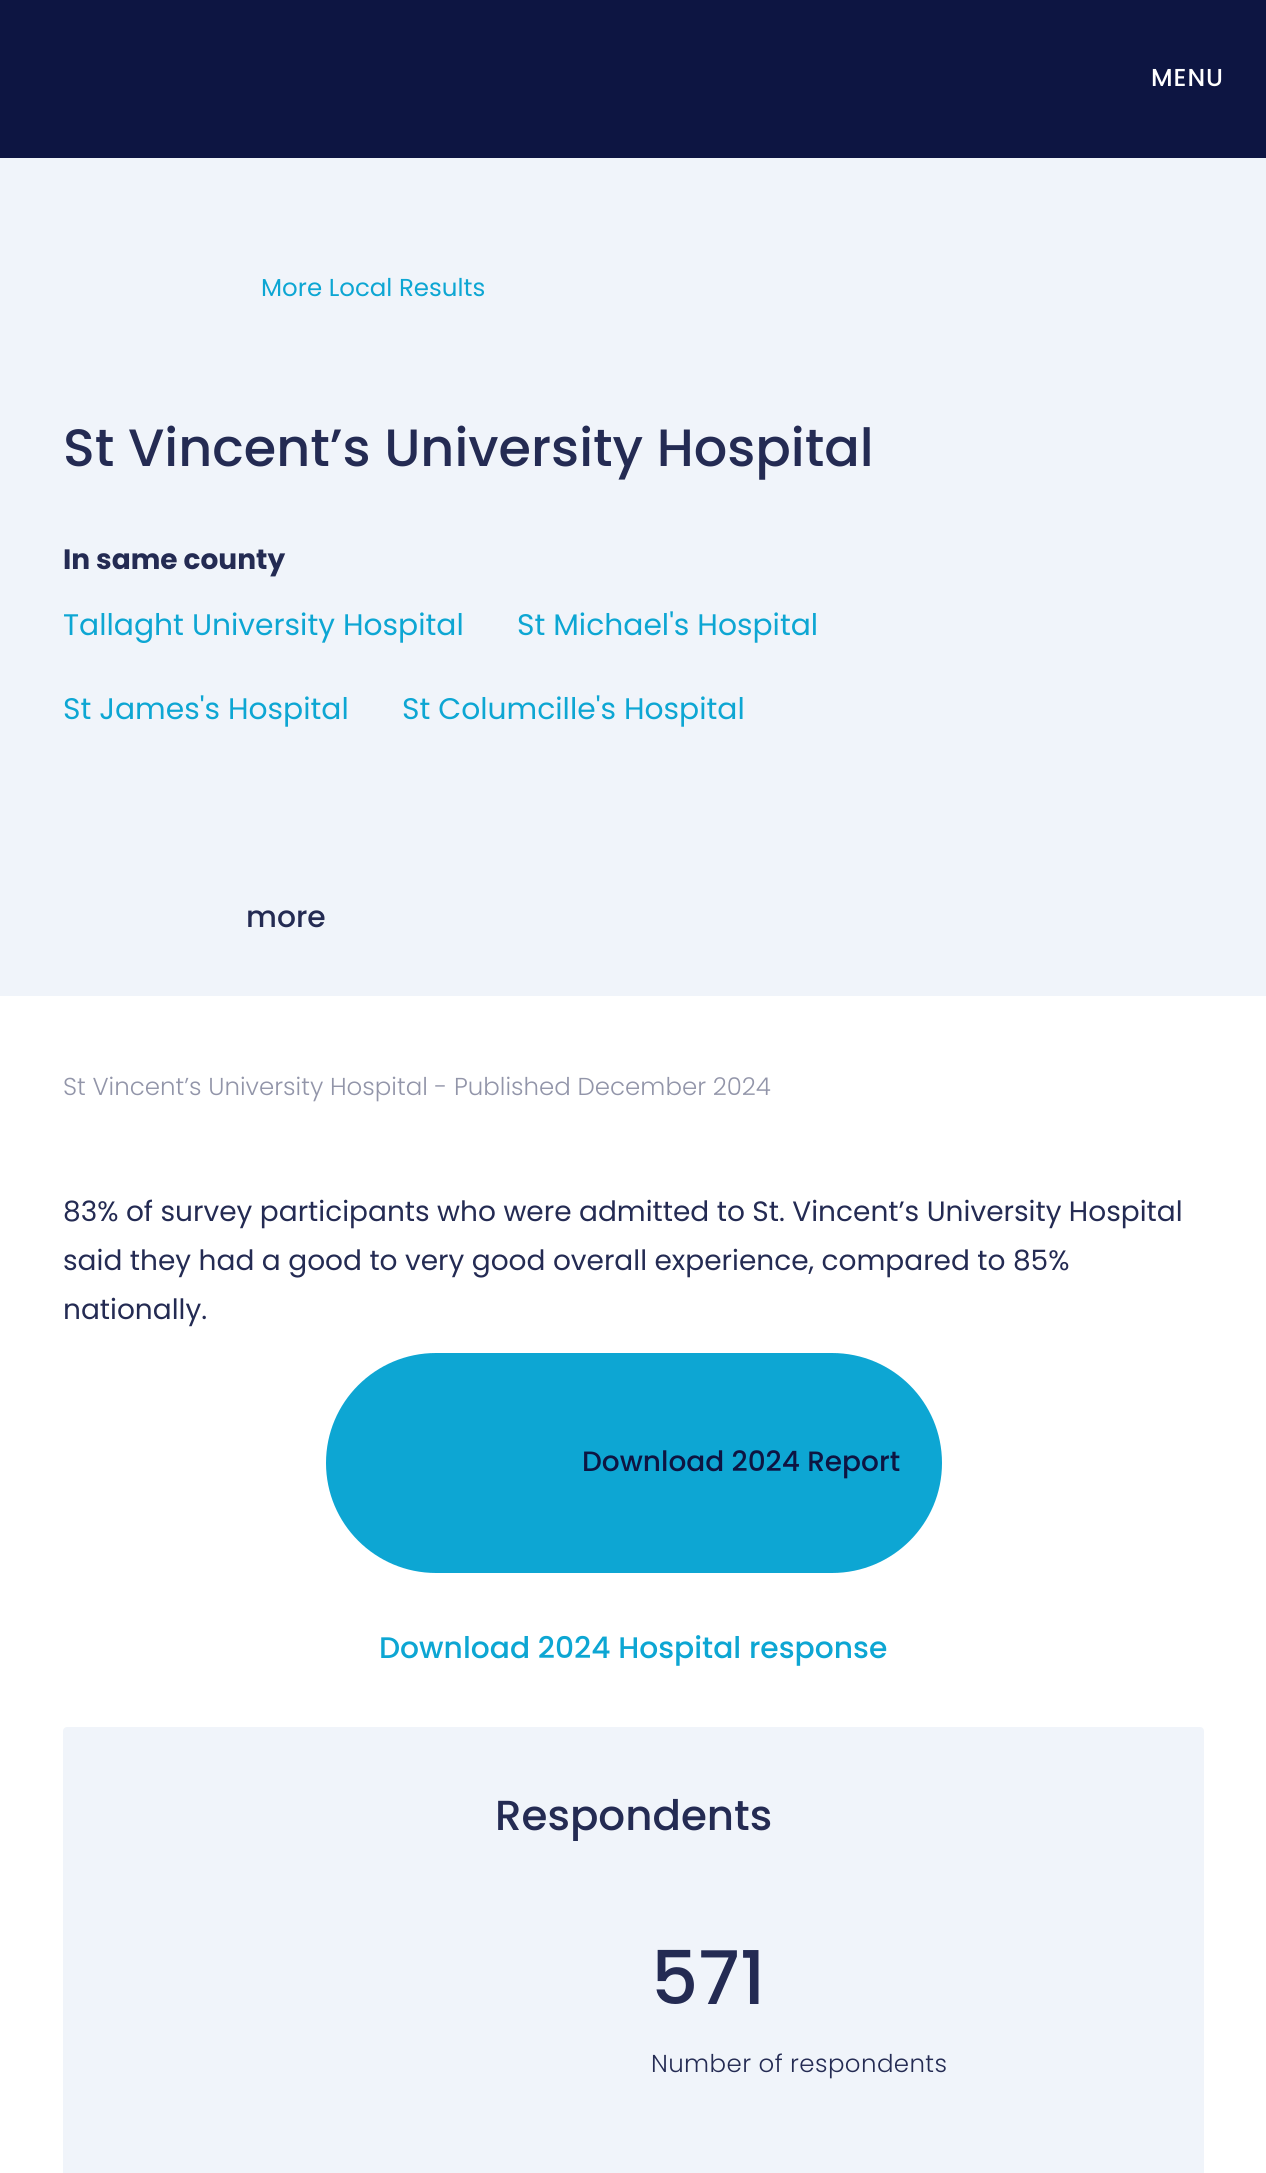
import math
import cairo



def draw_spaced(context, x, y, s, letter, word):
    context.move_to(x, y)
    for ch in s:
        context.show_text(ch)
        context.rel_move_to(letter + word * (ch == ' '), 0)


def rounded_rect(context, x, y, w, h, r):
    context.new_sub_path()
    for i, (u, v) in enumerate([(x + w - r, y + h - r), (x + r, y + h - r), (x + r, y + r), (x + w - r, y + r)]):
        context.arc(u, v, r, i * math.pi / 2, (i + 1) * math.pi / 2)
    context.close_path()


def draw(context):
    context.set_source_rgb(1, 1, 1)
    context.paint()
    context.set_source_rgb(13 / 255, 21 / 255, 66 / 255)
    context.rectangle(0, 0, 1266, 158)
    context.fill()
    context.set_source_rgb(240 / 255, 244 / 255, 250 / 255)
    context.rectangle(0, 158, 1266, 838)
    context.fill()
    context.set_source_rgb(13 / 255, 166 / 255, 211 / 255)
    rounded_rect(context, 326, 1353, 616, 220, 110)
    context.fill()
    context.set_source_rgb(240 / 255, 244 / 255, 250 / 255)
    rounded_rect(context, 63, 1727, 1141, 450, 4)
    context.fill()
    context.select_font_face("Poppins Medium")
    context.set_font_size(24.5)
    context.set_source_rgb(1, 1, 1)
    draw_spaced(context, 1151, 86, "MENU", 1, 0)
    context.select_font_face("Poppins")
    context.set_source_rgb(13 / 255, 166 / 255, 211 / 255)
    context.move_to(261, 296)
    context.show_text("More Local Results")
    context.select_font_face("Poppins Medium")
    context.set_font_size(52.5)
    context.set_source_rgb(36 / 255, 43 / 255, 83 / 255)
    context.move_to(63, 466)
    context.show_text("St Vincent’s University Hospital")
    context.select_font_face("Poppins", cairo.FontSlant.NORMAL, cairo.FontWeight.BOLD)
    context.set_font_size(28)
    context.move_to(63, 569)
    context.show_text("In same county")
    context.select_font_face("Poppins")
    context.set_font_size(29.75)
    context.set_source_rgb(13 / 255, 166 / 255, 211 / 255)
    context.move_to(63, 635)
    context.show_text("Tallaght University Hospital")
    context.move_to(517, 635)
    context.show_text("St Michael's Hospital")
    context.move_to(63, 719)
    context.show_text("St James's Hospital")
    context.move_to(402, 719)
    context.show_text("St Columcille's Hospital")
    context.select_font_face("Poppins Medium")
    context.set_source_rgb(36 / 255, 43 / 255, 83 / 255)
    context.move_to(246, 927)
    context.show_text("more")
    context.select_font_face("Poppins Light")
    context.set_font_size(24.5)
    context.set_source_rgb(146 / 255, 149 / 255, 169 / 255)
    context.move_to(63, 1095)
    context.show_text("St Vincent’s University Hospital - Published December 2024")
    context.select_font_face("Poppins")
    context.set_font_size(28)
    context.set_source_rgb(36 / 255, 43 / 255, 83 / 255)
    context.move_to(63, 1221)
    context.show_text("83% of survey participants who were admitted to St. Vincent’s University Hospital")
    context.move_to(63, 1270)
    context.show_text("said they had a good to very good overall experience, compared to 85%")
    context.move_to(63, 1319)
    context.show_text("nationally.")
    context.select_font_face("Poppins Medium")
    context.set_source_rgb(13 / 255, 21 / 255, 66 / 255)
    context.move_to(582, 1471)
    context.show_text("Download 2024 Report")
    context.set_font_size(29.75)
    context.set_source_rgb(13 / 255, 166 / 255, 211 / 255)
    context.move_to(379, 1658)
    context.show_text("Download 2024 Hospital response")
    context.set_font_size(42)
    context.set_source_rgb(36 / 255, 43 / 255, 83 / 255)
    context.move_to(495, 1830)
    context.show_text("Respondents")
    context.set_font_size(74)
    context.move_to(651, 2004)
    context.show_text("571")
    context.select_font_face("Poppins Light")
    context.set_font_size(24.5)
    draw_spaced(context, 651, 2072, "Number of respondents", 0.4, 0)


surface = cairo.ImageSurface(cairo.Format.RGB24, 1266, 2173)
context = cairo.Context(surface)
options = cairo.FontOptions()
options.set_hint_metrics(cairo.HintMetrics.OFF)
options.set_hint_style(cairo.HintStyle.NONE)
context.set_font_options(options)
context.set_miter_limit(4)
draw(context)
surface.write_to_png("out.png")
